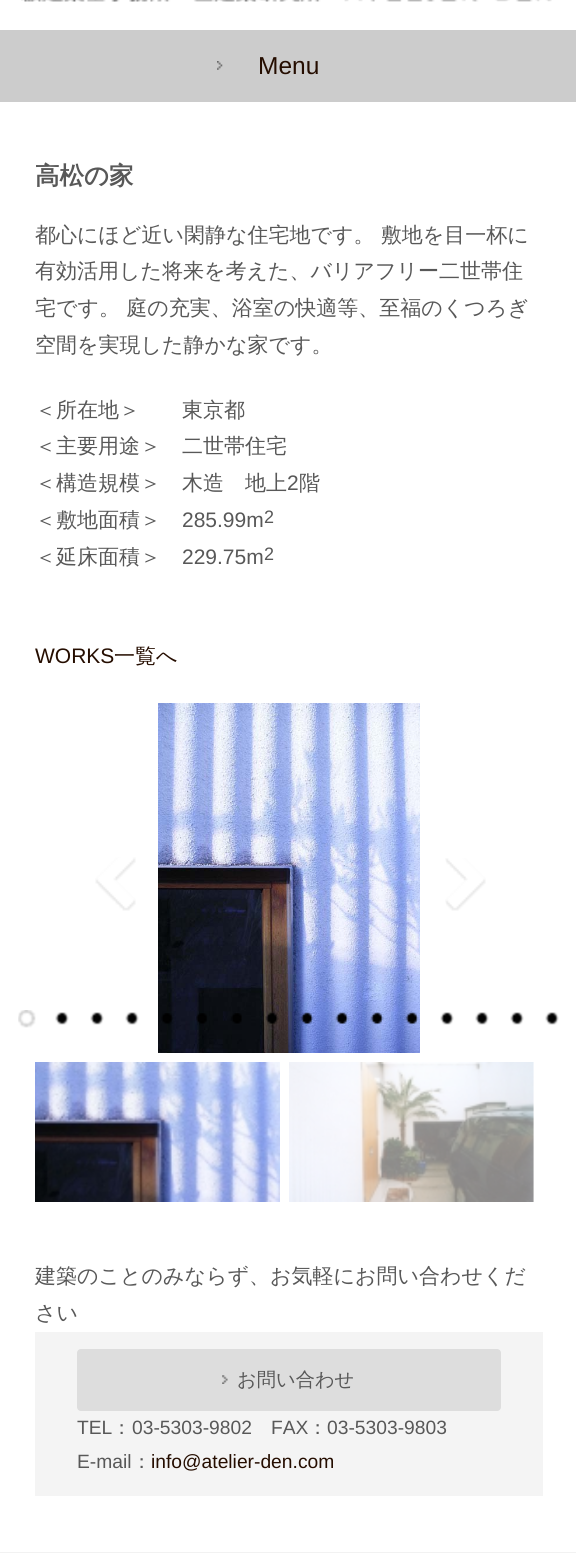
import math
import cairo



def rounded_rect(context, x, y, w, h, r):
    context.new_sub_path()
    for i, (u, v) in enumerate([(x + w - r, y + h - r), (x + r, y + h - r), (x + r, y + r), (x + w - r, y + r)]):
        context.arc(u, v, r, i * math.pi / 2, (i + 1) * math.pi / 2)
    context.close_path()


def draw_image(context, path, x, y, w, h):
    context.save()
    context.set_source_surface(cairo.ImageSurface.create_from_png(path), x, y)
    context.rectangle(x, y, w, h)
    context.fill()
    context.restore()


def draw(context):
    context.set_source_rgb(1, 1, 1)
    context.paint()
    draw_image(context, "images/1.png", 21, 0, 531, 2)
    context.set_source_rgb(204 / 255, 204 / 255, 204 / 255)
    context.rectangle(0, 30, 576, 72)
    context.fill()
    draw_image(context, "images/2.png", 217, 61, 6, 9)
    draw_image(context, "images/3.png", 95, 857, 41, 54)
    draw_image(context, "images/4.png", 158, 703, 262, 350)
    draw_image(context, "images/5.png", 445, 858, 41, 53)
    draw_image(context, "images/6.png", 18, 1010, 18, 18)
    draw_image(context, "images/7.png", 55, 1012, 14, 13)
    draw_image(context, "images/7.png", 90, 1012, 14, 13)
    draw_image(context, "images/8.png", 125, 1012, 14, 13)
    draw_image(context, "images/9.png", 161, 1013, 12, 11)
    draw_image(context, "images/10.png", 196, 1013, 11, 11)
    draw_image(context, "images/11.png", 231, 1013, 11, 11)
    draw_image(context, "images/12.png", 265, 1012, 13, 12)
    draw_image(context, "images/13.png", 300, 1012, 14, 12)
    draw_image(context, "images/14.png", 335, 1012, 14, 12)
    draw_image(context, "images/15.png", 370, 1012, 14, 12)
    draw_image(context, "images/16.png", 405, 1012, 14, 12)
    draw_image(context, "images/8.png", 440, 1012, 14, 13)
    draw_image(context, "images/7.png", 475, 1012, 14, 13)
    draw_image(context, "images/7.png", 510, 1012, 14, 13)
    draw_image(context, "images/17.png", 545, 1012, 14, 13)
    draw_image(context, "images/18.png", 35, 1062, 245, 140)
    draw_image(context, "images/19.png", 289, 1062, 245, 140)
    context.set_source_rgb(244 / 255, 244 / 255, 244 / 255)
    context.rectangle(35, 1332, 508, 164)
    context.fill()
    context.set_source_rgb(221 / 255, 221 / 255, 221 / 255)
    rounded_rect(context, 77, 1349, 424, 62, 4)
    context.fill()
    draw_image(context, "images/20.png", 222, 1375, 6, 9)
    context.set_source_rgb(242 / 255, 242 / 255, 242 / 255)
    context.rectangle(0, 1552, 576, 1)
    context.fill()
    context.select_font_face("Liberation Sans")
    context.set_font_size(24.5)
    context.set_source_rgb(37 / 255, 13 / 255, 0)
    context.move_to(258, 74)
    context.show_text("Menu")
    context.select_font_face("WenQuanYi Zen Hei", cairo.FontSlant.NORMAL, cairo.FontWeight.BOLD)
    context.set_source_rgb(88 / 255, 88 / 255, 88 / 255)
    context.move_to(35, 184)
    context.show_text("高松の家")
    context.select_font_face("WenQuanYi Zen Hei Medium")
    context.set_font_size(21)
    context.move_to(35, 242)
    context.show_text("都心にほど近い閑静な住宅地です。 敷地を目一杯に")
    context.move_to(35, 278)
    context.show_text("有効活用した将来を考えた、バリアフリー二世帯住")
    context.move_to(35, 315)
    context.show_text("宅です。 庭の充実、浴室の快適等、至福のくつろぎ")
    context.move_to(35, 352)
    context.show_text("空間を実現した静かな家です。")
    context.move_to(35, 417)
    context.show_text("＜所在地＞")
    context.move_to(182, 417)
    context.show_text("東京都")
    context.move_to(35, 453)
    context.show_text("＜主要用途＞")
    context.move_to(182, 453)
    context.show_text("二世帯住宅")
    context.move_to(35, 490)
    context.show_text("＜構造規模＞")
    context.move_to(182, 490)
    context.show_text("木造　地上")
    context.select_font_face("Liberation Sans")
    context.move_to(287, 490)
    context.show_text("2")
    context.select_font_face("WenQuanYi Zen Hei Medium")
    context.move_to(299, 490)
    context.show_text("階")
    context.move_to(35, 527)
    context.show_text("＜敷地面積＞")
    context.select_font_face("Liberation Sans")
    context.move_to(182, 527)
    context.show_text("285.99m")
    context.set_font_size(18)
    context.move_to(264, 523)
    context.show_text("2")
    context.select_font_face("WenQuanYi Zen Hei Medium")
    context.set_font_size(21)
    context.move_to(35, 564)
    context.show_text("＜延床面積＞")
    context.select_font_face("Liberation Sans")
    context.move_to(182, 564)
    context.show_text("229.75m")
    context.set_font_size(18)
    context.move_to(264, 560)
    context.show_text("2")
    context.set_font_size(21)
    context.set_source_rgb(37 / 255, 13 / 255, 0)
    context.move_to(35, 663)
    context.show_text("WORKS")
    context.select_font_face("WenQuanYi Zen Hei Medium")
    context.move_to(114, 663)
    context.show_text("一覧へ")
    context.set_source_rgb(88 / 255, 88 / 255, 88 / 255)
    context.move_to(35, 1283)
    context.show_text("建築のことのみならず、お気軽にお問い合わせくだ")
    context.move_to(35, 1320)
    context.show_text("さい")
    context.set_font_size(19.25)
    context.move_to(237, 1386)
    context.show_text("お問い合わせ")
    context.select_font_face("Liberation Sans")
    context.move_to(77, 1434)
    context.show_text("TEL")
    context.select_font_face("WenQuanYi Zen Hei Medium")
    context.move_to(112, 1434)
    context.show_text("：")
    context.select_font_face("Liberation Sans")
    context.move_to(132, 1434)
    context.show_text("03-5303-9802")
    context.move_to(271, 1434)
    context.show_text("FAX")
    context.select_font_face("WenQuanYi Zen Hei Medium")
    context.move_to(308, 1434)
    context.show_text("：")
    context.select_font_face("Liberation Sans")
    context.move_to(327, 1434)
    context.show_text("03-5303-9803")
    context.move_to(77, 1468)
    context.show_text("E-mail")
    context.select_font_face("WenQuanYi Zen Hei Medium")
    context.move_to(132, 1468)
    context.show_text("：")
    context.select_font_face("Liberation Sans")
    context.set_source_rgb(37 / 255, 13 / 255, 0)
    context.move_to(151, 1468)
    context.show_text("info@atelier-den.com")


surface = cairo.ImageSurface(cairo.Format.RGB24, 576, 1553)
context = cairo.Context(surface)
options = cairo.FontOptions()
options.set_hint_metrics(cairo.HintMetrics.OFF)
options.set_hint_style(cairo.HintStyle.NONE)
context.set_font_options(options)
context.set_miter_limit(4)
draw(context)
surface.write_to_png("out.png")
